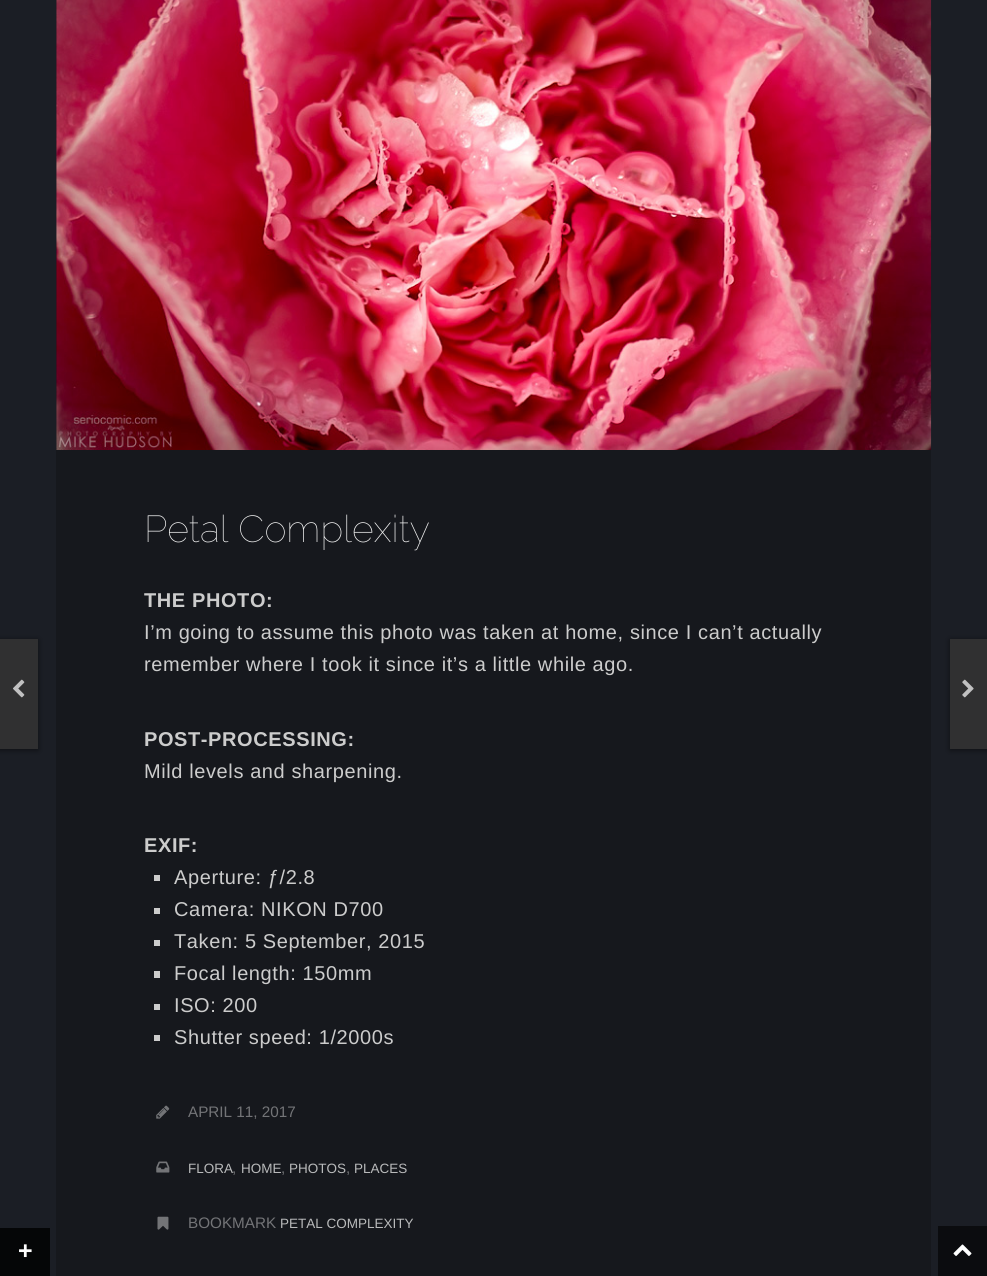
import math
import cairo



def draw_spaced(context, x, y, s, letter, word):
    context.move_to(x, y)
    for ch in s:
        context.show_text(ch)
        context.rel_move_to(letter + word * (ch == ' '), 0)


def rounded_rect(context, x, y, w, h, r):
    context.new_sub_path()
    for i, (u, v) in enumerate([(x + w - r, y + h - r), (x + r, y + h - r), (x + r, y + r), (x + w - r, y + r)]):
        context.arc(u, v, r, i * math.pi / 2, (i + 1) * math.pi / 2)
    context.close_path()


def draw_shadow(context, x, y, w, h, r, blur, alpha):
    context.push_group_with_content(cairo.Content.ALPHA)
    context.set_operator(cairo.Operator.SOURCE)
    for i in range(15, -16, -2):
        e = blur * i / 6
        if min(w, h) + 2 * e > 0:
            context.set_source_rgba(0, 0, 0, alpha * math.erfc((i - 1) / 8.5) / 2)
            rounded_rect(context, x - e, y - e, w + 2 * e, h + 2 * e, max(0, min(r + e + blur * .6, min(w, h) / 2 + e)))
            context.fill()
    context.mask(context.pop_group())


def draw_image(context, path, x, y, w, h):
    context.save()
    context.set_source_surface(cairo.ImageSurface.create_from_png(path), x, y)
    context.rectangle(x, y, w, h)
    context.fill()
    context.restore()


def draw(context):
    context.set_source_rgb(27 / 255, 30 / 255, 37 / 255)
    context.paint()
    context.set_source_rgb(22 / 255, 24 / 255, 29 / 255)
    context.rectangle(56, 0, 875, 1276)
    context.fill()
    draw_image(context, "images/1.png", 56, 0, 876, 450)
    context.save()
    context.set_fill_rule(cairo.FillRule.EVEN_ODD)
    context.new_path()
    context.move_to(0, 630)
    context.line_to(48, 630)
    context.line_to(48, 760)
    context.line_to(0, 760)
    context.close_path()
    context.move_to(-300, 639)
    context.line_to(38, 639)
    context.line_to(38, 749)
    context.line_to(-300, 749)
    context.close_path()
    context.clip()
    context.set_source_rgb(0, 0, 0)
    draw_shadow(context, -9, 640, 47, 110, 0, 3, 0.5)
    context.restore()
    context.set_source_rgba(50 / 255, 50 / 255, 50 / 255, 0.9)
    context.rectangle(0, 639, 38, 110)
    context.fill()
    draw_image(context, "images/2.png", 13, 679, 12, 19)
    context.set_source_rgb(204 / 255, 204 / 255, 204 / 255)
    context.rectangle(154, 875, 6, 6)
    context.fill()
    context.rectangle(154, 908, 6, 6)
    context.fill()
    context.rectangle(154, 940, 6, 6)
    context.fill()
    context.rectangle(154, 971, 6, 7)
    context.fill()
    context.rectangle(154, 1004, 6, 6)
    context.fill()
    context.rectangle(154, 1035, 6, 6)
    context.fill()
    context.save()
    context.set_fill_rule(cairo.FillRule.EVEN_ODD)
    context.new_path()
    context.move_to(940, 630)
    context.line_to(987, 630)
    context.line_to(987, 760)
    context.line_to(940, 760)
    context.close_path()
    context.move_to(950, 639)
    context.line_to(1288, 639)
    context.line_to(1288, 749)
    context.line_to(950, 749)
    context.close_path()
    context.clip()
    context.set_source_rgb(0, 0, 0)
    draw_shadow(context, 950, 640, 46, 110, 0, 3, 0.5)
    context.restore()
    context.set_source_rgba(50 / 255, 50 / 255, 50 / 255, 0.9)
    context.rectangle(950, 639, 37, 110)
    context.fill()
    draw_image(context, "images/3.png", 962, 679, 12, 19)
    draw_image(context, "images/4.png", 156, 1105, 14, 14)
    draw_image(context, "images/5.png", 156, 1161, 14, 12)
    draw_image(context, "images/6.png", 157, 1216, 12, 14)
    context.set_source_rgb(5 / 255, 6 / 255, 7 / 255)
    context.rectangle(0, 1228, 50, 48)
    context.fill()
    context.set_source_rgb(11 / 255, 12 / 255, 15 / 255)
    context.rectangle(938, 1226, 49, 50)
    context.fill()
    draw_image(context, "images/7.png", 953, 1244, 19, 12)
    context.select_font_face("Raleway Thin")
    context.set_font_size(37.5)
    context.set_source_rgb(242 / 255, 242 / 255, 242 / 255)
    context.move_to(144, 542)
    context.show_text("Petal Complexity")
    context.select_font_face("Liberation Sans", cairo.FontSlant.NORMAL, cairo.FontWeight.BOLD)
    context.set_font_size(20)
    context.set_source_rgb(204 / 255, 204 / 255, 204 / 255)
    draw_spaced(context, 144, 607, "THE PHOTO:", 0.6, 0)
    context.select_font_face("Liberation Sans")
    draw_spaced(context, 144, 639, "I’m going to assume this photo was taken at home, since I can’t actually", 0.6, 0)
    draw_spaced(context, 144, 671, "remember where I took it since it’s a little while ago.", 0.6, 0)
    context.select_font_face("Liberation Sans", cairo.FontSlant.NORMAL, cairo.FontWeight.BOLD)
    draw_spaced(context, 144, 746, "POST-PROCESSING:", 0.6, 0)
    context.select_font_face("Liberation Sans")
    draw_spaced(context, 144, 778, "Mild levels and sharpening.", 0.6, 0)
    context.select_font_face("Liberation Sans", cairo.FontSlant.NORMAL, cairo.FontWeight.BOLD)
    draw_spaced(context, 144, 852, "EXIF:", 0.6, 0)
    context.select_font_face("Liberation Sans")
    draw_spaced(context, 174, 884, "Aperture: ƒ/2.8", 0.6, 0)
    draw_spaced(context, 174, 916, "Camera: NIKON D700", 0.6, 0)
    draw_spaced(context, 174, 948, "Taken: 5 September, 2015", 0.6, 0)
    draw_spaced(context, 174, 980, "Focal length: 150mm", 0.6, 0)
    draw_spaced(context, 174, 1012, "ISO: 200", 0.6, 0)
    draw_spaced(context, 174, 1044, "Shutter speed: 1/2000s", 0.6, 0)
    context.set_font_size(15.25)
    context.set_source_rgb(115 / 255, 116 / 255, 119 / 255)
    context.move_to(188, 1117)
    context.show_text("APRIL 11, 2017")
    context.set_font_size(13.5)
    context.set_source_rgb(185 / 255, 186 / 255, 187 / 255)
    context.move_to(188, 1173)
    context.show_text("FLORA")
    context.set_font_size(15.25)
    context.set_source_rgb(115 / 255, 116 / 255, 119 / 255)
    context.move_to(232, 1173)
    context.show_text(",")
    context.set_font_size(13.5)
    context.set_source_rgb(185 / 255, 186 / 255, 187 / 255)
    context.move_to(241, 1173)
    context.show_text("HOME")
    context.set_font_size(15.25)
    context.set_source_rgb(115 / 255, 116 / 255, 119 / 255)
    context.move_to(281, 1173)
    context.show_text(",")
    context.set_font_size(13.5)
    context.set_source_rgb(185 / 255, 186 / 255, 187 / 255)
    context.move_to(289, 1173)
    context.show_text("PHOTOS")
    context.set_font_size(15.25)
    context.set_source_rgb(115 / 255, 116 / 255, 119 / 255)
    context.move_to(346, 1173)
    context.show_text(",")
    context.set_font_size(13.5)
    context.set_source_rgb(185 / 255, 186 / 255, 187 / 255)
    context.move_to(354, 1173)
    context.show_text("PLACES")
    context.set_font_size(15.25)
    context.set_source_rgb(115 / 255, 116 / 255, 119 / 255)
    context.move_to(188, 1228)
    context.show_text("BOOKMARK")
    context.set_font_size(13.5)
    context.set_source_rgb(185 / 255, 186 / 255, 187 / 255)
    context.move_to(280, 1228)
    context.show_text("PETAL COMPLEXITY")
    context.select_font_face("Liberation Sans", cairo.FontSlant.NORMAL, cairo.FontWeight.BOLD)
    context.set_font_size(25)
    context.set_source_rgb(1, 1, 1)
    context.move_to(18, 1259)
    context.show_text("+")


surface = cairo.ImageSurface(cairo.Format.RGB24, 987, 1276)
context = cairo.Context(surface)
options = cairo.FontOptions()
options.set_hint_metrics(cairo.HintMetrics.OFF)
options.set_hint_style(cairo.HintStyle.NONE)
context.set_font_options(options)
context.set_miter_limit(4)
draw(context)
surface.write_to_png("out.png")
